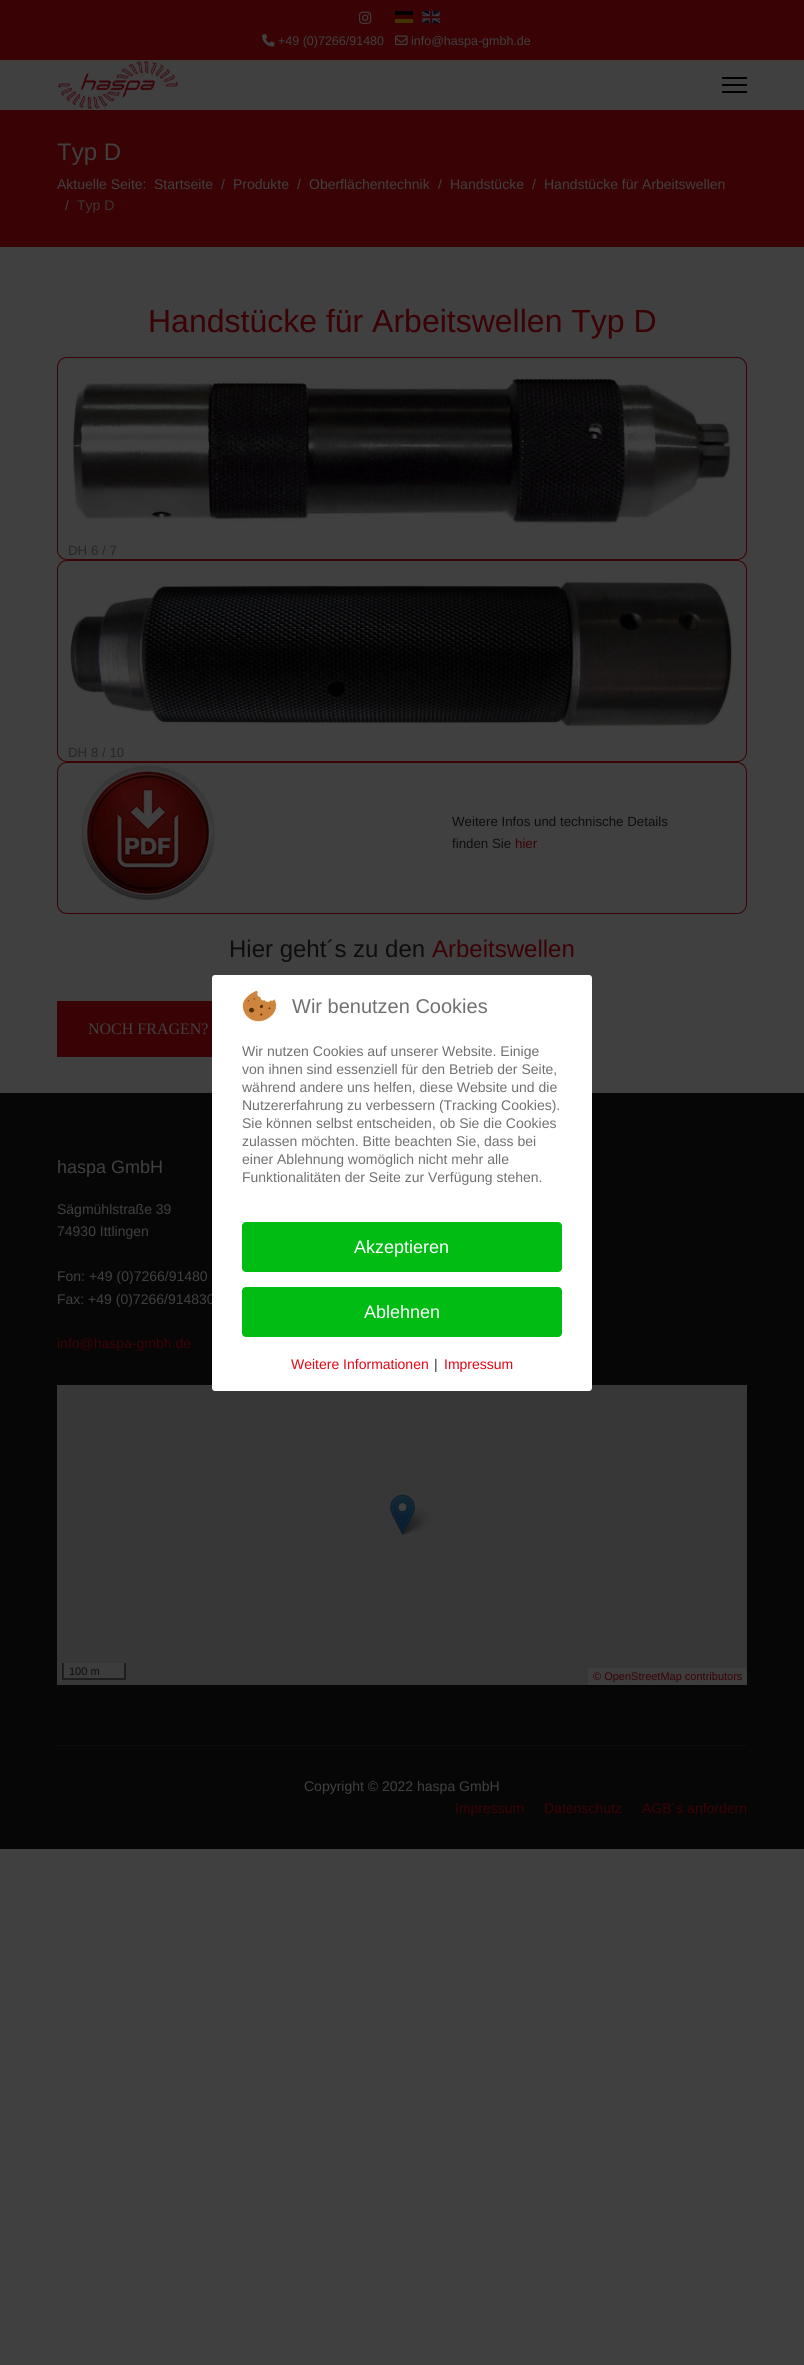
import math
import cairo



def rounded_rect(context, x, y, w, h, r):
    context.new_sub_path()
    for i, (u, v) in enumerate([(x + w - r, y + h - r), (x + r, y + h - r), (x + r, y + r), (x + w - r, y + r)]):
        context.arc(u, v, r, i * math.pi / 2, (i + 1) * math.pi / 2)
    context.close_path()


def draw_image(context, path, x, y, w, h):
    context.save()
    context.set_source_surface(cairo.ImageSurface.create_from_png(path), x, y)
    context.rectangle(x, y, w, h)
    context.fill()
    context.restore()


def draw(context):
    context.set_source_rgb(64 / 255, 64 / 255, 64 / 255)
    context.paint()
    context.set_source_rgb(57 / 255, 2 / 255, 5 / 255)
    context.rectangle(0, 0, 804, 60)
    context.fill()
    draw_image(context, "images/1.png", 359, 11, 13, 13)
    draw_image(context, "images/2.png", 395, 11, 18, 12)
    draw_image(context, "images/3.png", 422, 11, 18, 12)
    draw_image(context, "images/4.png", 262, 34, 13, 13)
    draw_image(context, "images/5.png", 395, 35, 13, 10)
    draw_image(context, "images/6.png", 58, 61, 120, 48)
    context.set_source_rgb(0, 0, 0)
    context.rectangle(722, 77, 25, 2)
    context.fill()
    context.rectangle(722, 84, 25, 2)
    context.fill()
    context.rectangle(722, 91, 25, 2)
    context.fill()
    context.set_source_rgb(57 / 255, 2 / 255, 5 / 255)
    context.rectangle(0, 110, 804, 137)
    context.fill()
    rounded_rect(context, 57.5, 357.5, 689, 202, 9.5)
    context.set_line_width(1)
    context.stroke()
    draw_image(context, "images/7.png", 71, 378, 662, 147)
    rounded_rect(context, 57.5, 560.5, 689, 201, 9.5)
    context.stroke()
    draw_image(context, "images/8.png", 69, 579, 664, 149)
    rounded_rect(context, 57.5, 762.5, 689, 151, 9.5)
    context.stroke()
    draw_image(context, "images/9.png", 78, 763, 140, 140)
    context.rectangle(57, 1001, 155, 56)
    context.fill()
    context.set_source_rgb(6 / 255, 6 / 255, 6 / 255)
    context.rectangle(0, 1093, 804, 756)
    context.fill()
    context.set_source_rgb(55 / 255, 55 / 255, 55 / 255)
    context.rectangle(57, 1385, 690, 300)
    context.fill()
    draw_image(context, "images/11.png", 400, 1507, 29, 28)
    draw_image(context, "images/10.png", 390, 1494, 25, 41)
    context.set_source_rgb(60 / 255, 60 / 255, 60 / 255)
    context.rectangle(64, 1663, 60, 15)
    context.fill()
    context.set_source_rgb(30 / 255, 30 / 255, 30 / 255)
    context.rectangle(124, 1663, 2, 17)
    context.fill()
    context.rectangle(62, 1678, 64, 2)
    context.fill()
    context.rectangle(62, 1663, 2, 17)
    context.fill()
    context.set_source_rgb(61 / 255, 61 / 255, 61 / 255)
    context.rectangle(588, 1668, 159, 17)
    context.fill()
    context.set_source_rgb(12 / 255, 12 / 255, 12 / 255)
    context.rectangle(57, 1745, 690, 1)
    context.fill()
    context.select_font_face("Liberation Sans")
    context.set_font_size(12.5)
    context.set_source_rgb(64 / 255, 64 / 255, 64 / 255)
    context.move_to(278, 45)
    context.show_text("+49 (0)7266/91480")
    context.move_to(411, 45)
    context.show_text("info@haspa-gmbh.de")
    context.set_font_size(24)
    context.move_to(57, 160)
    context.show_text("Typ D")
    context.set_font_size(14)
    context.move_to(57, 189)
    context.show_text("Aktuelle Seite:")
    context.move_to(154, 189)
    context.show_text("Startseite")
    context.move_to(221, 189)
    context.show_text("/")
    context.move_to(233, 189)
    context.show_text("Produkte")
    context.move_to(297, 189)
    context.show_text("/")
    context.move_to(309, 189)
    context.show_text("Oberflächentechnik")
    context.move_to(438, 189)
    context.show_text("/")
    context.move_to(450, 189)
    context.show_text("Handstücke")
    context.move_to(532, 189)
    context.show_text("/")
    context.move_to(544, 189)
    context.show_text("Handstücke für Arbeitswellen")
    context.move_to(65, 210)
    context.show_text("/")
    context.set_source_rgb(62 / 255, 51 / 255, 52 / 255)
    context.move_to(77, 210)
    context.show_text("Typ D")
    context.set_font_size(32)
    context.set_source_rgb(57 / 255, 2 / 255, 5 / 255)
    context.move_to(148, 332)
    context.show_text("Handstücke für Arbeitswellen Typ D")
    context.set_font_size(13.3)
    context.set_source_rgb(38 / 255, 38 / 255, 38 / 255)
    context.move_to(68, 555)
    context.show_text("DH 6 / 7")
    context.move_to(68, 757)
    context.show_text("DH 8 / 10")
    context.set_source_rgb(13 / 255, 13 / 255, 13 / 255)
    context.move_to(452, 826)
    context.show_text("Weitere Infos und technische Details")
    context.move_to(452, 848)
    context.show_text("finden Sie")
    context.set_source_rgb(57 / 255, 2 / 255, 5 / 255)
    context.move_to(515, 848)
    context.show_text("hier")
    context.set_font_size(24)
    context.set_source_rgb(13 / 255, 13 / 255, 13 / 255)
    context.move_to(229, 957)
    context.show_text("Hier geht´s zu den")
    context.set_source_rgb(57 / 255, 2 / 255, 5 / 255)
    context.move_to(432, 957)
    context.show_text("Arbeitswellen")
    context.select_font_face("Liberation Serif")
    context.set_font_size(16)
    context.set_source_rgb(64 / 255, 64 / 255, 64 / 255)
    context.move_to(88, 1034)
    context.show_text("NOCH FRAGEN?")
    context.select_font_face("Liberation Sans")
    context.set_font_size(18)
    context.move_to(57, 1173)
    context.show_text("haspa GmbH")
    context.set_font_size(14)
    context.move_to(57, 1214)
    context.show_text("Sägmühlstraße 39")
    context.move_to(57, 1236)
    context.show_text("74930 Ittlingen")
    context.move_to(57, 1281)
    context.show_text("Fon: +49 (0)7266/91480")
    context.move_to(57, 1304)
    context.show_text("Fax: +49 (0)7266/914830")
    context.set_source_rgb(57 / 255, 2 / 255, 5 / 255)
    context.move_to(57, 1348)
    context.show_text("info@haspa-gmbh.de")
    context.set_font_size(11)
    context.set_source_rgb(13 / 255, 13 / 255, 13 / 255)
    context.move_to(69, 1675)
    context.show_text("100 m")
    context.set_source_rgb(57 / 255, 2 / 255, 5 / 255)
    context.move_to(593, 1680)
    context.show_text("© OpenStreetMap contributors")
    context.set_font_size(14)
    context.set_source_rgb(64 / 255, 64 / 255, 64 / 255)
    context.move_to(304, 1791)
    context.show_text("Copyright © 2022 haspa GmbH")
    context.set_source_rgb(57 / 255, 2 / 255, 5 / 255)
    context.move_to(455, 1813)
    context.show_text("Impressum")
    context.move_to(544, 1813)
    context.show_text("Datenschutz")
    context.move_to(642, 1813)
    context.show_text("AGB´s anfordern")
    context.set_source_rgb(1, 1, 1)
    rounded_rect(context, 212, 975, 380, 416, 3)
    context.fill()
    draw_image(context, "images/12.png", 242, 990, 35, 32)
    context.set_font_size(20)
    context.set_source_rgb(112 / 255, 112 / 255, 112 / 255)
    context.move_to(292, 1013)
    context.show_text("Wir benutzen Cookies")
    context.set_font_size(14)
    context.move_to(242, 1056)
    context.show_text("Wir nutzen Cookies auf unserer Website. Einige")
    context.move_to(242, 1074)
    context.show_text("von ihnen sind essenziell für den Betrieb der Seite,")
    context.move_to(242, 1092)
    context.show_text("während andere uns helfen, diese Website und die")
    context.move_to(242, 1110)
    context.show_text("Nutzererfahrung zu verbessern (Tracking Cookies).")
    context.move_to(242, 1128)
    context.show_text("Sie können selbst entscheiden, ob Sie die Cookies")
    context.move_to(242, 1146)
    context.show_text("zulassen möchten. Bitte beachten Sie, dass bei")
    context.move_to(242, 1164)
    context.show_text("einer Ablehnung womöglich nicht mehr alle")
    context.move_to(242, 1182)
    context.show_text("Funktionalitäten der Seite zur Verfügung stehen.")
    context.set_source_rgb(0, 188 / 255, 19 / 255)
    rounded_rect(context, 242, 1222, 320, 50, 4)
    context.fill()
    context.set_font_size(18)
    context.set_source_rgb(1, 1, 1)
    context.move_to(354, 1253)
    context.show_text("Akzeptieren")
    context.set_source_rgb(0, 188 / 255, 19 / 255)
    rounded_rect(context, 242, 1287, 320, 50, 4)
    context.fill()
    context.set_source_rgb(1, 1, 1)
    context.move_to(364, 1318)
    context.show_text("Ablehnen")
    context.set_font_size(14)
    context.set_source_rgb(227 / 255, 6 / 255, 19 / 255)
    context.move_to(291, 1369)
    context.show_text("Weitere Informationen")
    context.set_source_rgb(51 / 255, 51 / 255, 51 / 255)
    context.move_to(434, 1369)
    context.show_text("|")
    context.set_source_rgb(227 / 255, 6 / 255, 19 / 255)
    context.move_to(444, 1369)
    context.show_text("Impressum")


surface = cairo.ImageSurface(cairo.Format.RGB24, 804, 2365)
context = cairo.Context(surface)
options = cairo.FontOptions()
options.set_hint_metrics(cairo.HintMetrics.OFF)
options.set_hint_style(cairo.HintStyle.NONE)
context.set_font_options(options)
context.set_miter_limit(4)
draw(context)
surface.write_to_png("out.png")
